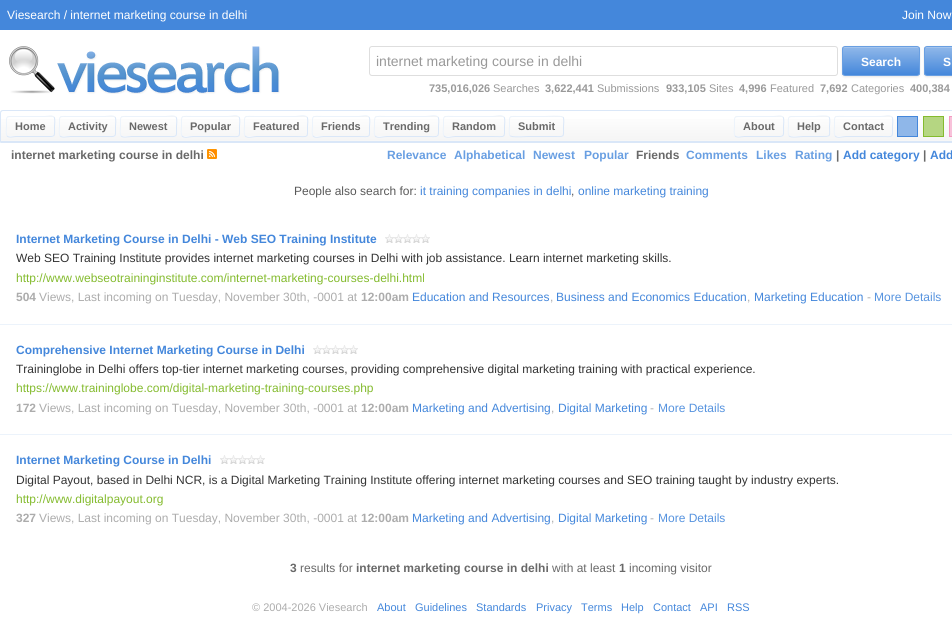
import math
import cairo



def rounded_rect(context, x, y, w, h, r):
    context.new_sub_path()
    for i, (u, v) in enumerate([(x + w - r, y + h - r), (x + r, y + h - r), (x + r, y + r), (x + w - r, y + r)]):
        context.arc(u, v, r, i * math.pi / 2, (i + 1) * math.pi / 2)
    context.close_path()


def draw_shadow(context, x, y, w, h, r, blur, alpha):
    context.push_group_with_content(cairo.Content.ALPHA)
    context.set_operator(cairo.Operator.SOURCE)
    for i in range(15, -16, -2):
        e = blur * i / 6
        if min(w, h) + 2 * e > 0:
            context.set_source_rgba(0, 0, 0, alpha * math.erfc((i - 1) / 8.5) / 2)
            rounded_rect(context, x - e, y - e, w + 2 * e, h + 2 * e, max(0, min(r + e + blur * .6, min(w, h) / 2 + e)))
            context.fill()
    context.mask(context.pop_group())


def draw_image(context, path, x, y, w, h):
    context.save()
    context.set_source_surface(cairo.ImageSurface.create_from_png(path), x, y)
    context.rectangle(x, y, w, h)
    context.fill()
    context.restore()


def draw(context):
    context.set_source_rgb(1, 1, 1)
    context.paint()
    context.set_source_rgb(68 / 255, 135 / 255, 219 / 255)
    context.rectangle(0, 0, 952, 30)
    context.fill()
    draw_image(context, "images/1.png", 9, 46, 271, 48)
    rounded_rect(context, 369.5, 46.5, 468, 29, 2.5)
    context.set_source_rgb(222 / 255, 222 / 255, 222 / 255)
    context.set_line_width(1)
    context.stroke()
    context.set_source_rgb(0, 0, 0)
    draw_shadow(context, 842, 47, 78, 30, 3, 1, 0.1)
    context.save()
    rounded_rect(context, 842, 46, 78, 30, 3)
    context.clip()
    gradient = cairo.LinearGradient(919, 47, 919, 75)
    gradient.add_color_stop_rgba(0.01, 236 / 255, 243 / 255, 251 / 255, 1)
    gradient.add_color_stop_rgba(0.02, 143 / 255, 183 / 255, 233 / 255, 1)
    gradient.add_color_stop_rgba(1, 68 / 255, 135 / 255, 219 / 255, 1)
    context.set_source(gradient)
    context.rectangle(842, 47, 78, 28)
    context.fill()
    context.restore()
    rounded_rect(context, 842.5, 46.5, 77, 29, 2.5)
    context.set_source_rgb(105 / 255, 159 / 255, 226 / 255)
    context.stroke()
    context.set_source_rgb(0, 0, 0)
    draw_shadow(context, 924, 47, 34, 30, 3, 1, 0.1)
    context.save()
    rounded_rect(context, 924, 46, 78, 30, 3)
    context.clip()
    gradient = cairo.LinearGradient(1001, 47, 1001, 75)
    gradient.add_color_stop_rgba(0.01, 236 / 255, 243 / 255, 251 / 255, 1)
    gradient.add_color_stop_rgba(0.02, 143 / 255, 183 / 255, 233 / 255, 1)
    gradient.add_color_stop_rgba(1, 68 / 255, 135 / 255, 219 / 255, 1)
    context.set_source(gradient)
    context.rectangle(924, 47, 28, 28)
    context.fill()
    context.restore()
    rounded_rect(context, 924.5, 46.5, 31, 29, 2.5)
    context.set_source_rgb(105 / 255, 159 / 255, 226 / 255)
    context.stroke()
    context.set_source_rgb(218 / 255, 231 / 255, 248 / 255)
    context.rectangle(0, 141, 952, 1)
    context.fill()
    gradient = cairo.LinearGradient(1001, 111, 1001, 141)
    gradient.add_color_stop_rgba(0.01, 1, 1, 1, 1)
    gradient.add_color_stop_rgba(0.02, 1, 1, 1, 1)
    gradient.add_color_stop_rgba(0.98, 245 / 255, 245 / 255, 245 / 255, 1)
    gradient.add_color_stop_rgba(1, 1, 1, 1, 1)
    context.set_source(gradient)
    context.rectangle(0, 119, 952, 22)
    context.fill()
    context.set_source_rgb(218 / 255, 231 / 255, 248 / 255)
    context.set_fill_rule(cairo.FillRule.EVEN_ODD)
    context.new_path()
    context.move_to(3, 110)
    context.line_to(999, 110)
    context.curve_to(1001, 110, 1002, 111, 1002, 113)
    context.line_to(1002, 141)
    context.line_to(0, 141)
    context.line_to(0, 113)
    context.curve_to(0, 111, 1, 110, 3, 110)
    context.close_path()
    context.move_to(3, 111)
    context.line_to(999, 111)
    context.curve_to(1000, 111, 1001, 112, 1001, 113)
    context.line_to(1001, 141)
    context.line_to(1, 141)
    context.line_to(1, 113)
    context.curve_to(1, 112, 2, 111, 3, 111)
    context.close_path()
    context.fill()
    context.save()
    context.set_fill_rule(cairo.FillRule.WINDING)
    rounded_rect(context, 6, 116, 49, 21, 3)
    context.clip()
    gradient = cairo.LinearGradient(54, 98, 54, 117)
    gradient.add_color_stop_rgba(0.01, 1, 1, 1, 1)
    gradient.add_color_stop_rgba(0.02, 1, 1, 1, 1)
    gradient.add_color_stop_rgba(1, 245 / 255, 245 / 255, 245 / 255, 1)
    context.set_source(gradient)
    context.rectangle(6, 116, 49, 1)
    context.fill()
    gradient = cairo.LinearGradient(54, 136, 54, 155)
    gradient.add_color_stop_rgba(0.01, 1, 1, 1, 1)
    gradient.add_color_stop_rgba(0.02, 1, 1, 1, 1)
    gradient.add_color_stop_rgba(1, 245 / 255, 245 / 255, 245 / 255, 1)
    context.set_source(gradient)
    context.rectangle(6, 136, 49, 1)
    context.fill()
    context.restore()
    context.new_path()
    context.move_to(54, 117)
    context.curve_to(55.5, 119, 54.5, 124.5, 54.5, 126.5)
    context.curve_to(54.5, 137.5, 56, 136.5, 45, 136.5)
    context.line_to(16, 136.5)
    context.curve_to(13, 136.5, 9.5, 138, 7, 136)
    context.stroke()
    context.new_path()
    context.move_to(7, 136)
    context.curve_to(5.5, 134, 6.5, 128.5, 6.5, 126.5)
    context.curve_to(6.5, 115.5, 5, 116.5, 16, 116.5)
    context.line_to(45, 116.5)
    context.curve_to(48, 116.5, 51.5, 115, 54, 117)
    context.set_source_rgb(236 / 255, 243 / 255, 251 / 255)
    context.stroke()
    context.save()
    context.set_fill_rule(cairo.FillRule.WINDING)
    rounded_rect(context, 59, 116, 57, 21, 3)
    context.clip()
    gradient = cairo.LinearGradient(115, 98, 115, 117)
    gradient.add_color_stop_rgba(0.01, 1, 1, 1, 1)
    gradient.add_color_stop_rgba(0.02, 1, 1, 1, 1)
    gradient.add_color_stop_rgba(1, 245 / 255, 245 / 255, 245 / 255, 1)
    context.set_source(gradient)
    context.rectangle(59, 116, 57, 1)
    context.fill()
    gradient = cairo.LinearGradient(115, 136, 115, 155)
    gradient.add_color_stop_rgba(0.01, 1, 1, 1, 1)
    gradient.add_color_stop_rgba(0.02, 1, 1, 1, 1)
    gradient.add_color_stop_rgba(1, 245 / 255, 245 / 255, 245 / 255, 1)
    context.set_source(gradient)
    context.rectangle(59, 136, 57, 1)
    context.fill()
    context.restore()
    context.new_path()
    context.move_to(115, 117)
    context.curve_to(116.5, 119, 115.5, 124.5, 115.5, 126.5)
    context.curve_to(115.5, 138, 117, 136.5, 104.5, 136.5)
    context.line_to(70.5, 136.5)
    context.curve_to(67, 136.5, 62.5, 138, 60, 136)
    context.set_source_rgb(218 / 255, 231 / 255, 248 / 255)
    context.stroke()
    context.new_path()
    context.move_to(60, 136)
    context.curve_to(58.5, 134, 59.5, 128.5, 59.5, 126.5)
    context.curve_to(59.5, 115, 58, 116.5, 70.5, 116.5)
    context.line_to(104.5, 116.5)
    context.curve_to(108, 116.5, 112.5, 115, 115, 117)
    context.set_source_rgb(236 / 255, 243 / 255, 251 / 255)
    context.stroke()
    context.save()
    context.set_fill_rule(cairo.FillRule.WINDING)
    rounded_rect(context, 120, 116, 57, 21, 3)
    context.clip()
    gradient = cairo.LinearGradient(176, 98, 176, 117)
    gradient.add_color_stop_rgba(0.01, 1, 1, 1, 1)
    gradient.add_color_stop_rgba(0.02, 1, 1, 1, 1)
    gradient.add_color_stop_rgba(1, 245 / 255, 245 / 255, 245 / 255, 1)
    context.set_source(gradient)
    context.rectangle(120, 116, 57, 1)
    context.fill()
    gradient = cairo.LinearGradient(176, 136, 176, 155)
    gradient.add_color_stop_rgba(0.01, 1, 1, 1, 1)
    gradient.add_color_stop_rgba(0.02, 1, 1, 1, 1)
    gradient.add_color_stop_rgba(1, 245 / 255, 245 / 255, 245 / 255, 1)
    context.set_source(gradient)
    context.rectangle(120, 136, 57, 1)
    context.fill()
    context.restore()
    context.new_path()
    context.move_to(176, 117)
    context.curve_to(177.5, 119, 176.5, 124.5, 176.5, 126.5)
    context.curve_to(176.5, 138, 178, 136.5, 165.5, 136.5)
    context.line_to(131.5, 136.5)
    context.curve_to(128, 136.5, 123.5, 138, 121, 136)
    context.set_source_rgb(218 / 255, 231 / 255, 248 / 255)
    context.stroke()
    context.new_path()
    context.move_to(121, 136)
    context.curve_to(119.5, 134, 120.5, 128.5, 120.5, 126.5)
    context.curve_to(120.5, 115, 119, 116.5, 131.5, 116.5)
    context.line_to(165.5, 116.5)
    context.curve_to(169, 116.5, 173.5, 115, 176, 117)
    context.set_source_rgb(236 / 255, 243 / 255, 251 / 255)
    context.stroke()
    context.save()
    context.set_fill_rule(cairo.FillRule.WINDING)
    rounded_rect(context, 181, 116, 59, 21, 3)
    context.clip()
    gradient = cairo.LinearGradient(239, 98, 239, 117)
    gradient.add_color_stop_rgba(0.01, 1, 1, 1, 1)
    gradient.add_color_stop_rgba(0.02, 1, 1, 1, 1)
    gradient.add_color_stop_rgba(1, 245 / 255, 245 / 255, 245 / 255, 1)
    context.set_source(gradient)
    context.rectangle(181, 116, 59, 1)
    context.fill()
    gradient = cairo.LinearGradient(239, 136, 239, 155)
    gradient.add_color_stop_rgba(0.01, 1, 1, 1, 1)
    gradient.add_color_stop_rgba(0.02, 1, 1, 1, 1)
    gradient.add_color_stop_rgba(1, 245 / 255, 245 / 255, 245 / 255, 1)
    context.set_source(gradient)
    context.rectangle(181, 136, 59, 1)
    context.fill()
    context.restore()
    context.new_path()
    context.move_to(239, 117)
    context.curve_to(240.5, 119, 239.5, 124.5, 239.5, 126.5)
    context.curve_to(239.5, 138.5, 241, 136.5, 228, 136.5)
    context.line_to(193, 136.5)
    context.curve_to(189, 136.5, 185, 138.5, 182, 136)
    context.set_source_rgb(218 / 255, 231 / 255, 248 / 255)
    context.stroke()
    context.new_path()
    context.move_to(182, 136)
    context.curve_to(180.5, 134, 181.5, 128.5, 181.5, 126.5)
    context.curve_to(181.5, 114.5, 180, 116.5, 193, 116.5)
    context.line_to(228, 116.5)
    context.curve_to(232, 116.5, 236, 114.5, 239, 117)
    context.set_source_rgb(236 / 255, 243 / 255, 251 / 255)
    context.stroke()
    context.save()
    context.set_fill_rule(cairo.FillRule.WINDING)
    rounded_rect(context, 244, 116, 64, 21, 3)
    context.clip()
    gradient = cairo.LinearGradient(307, 98, 307, 117)
    gradient.add_color_stop_rgba(0.01, 1, 1, 1, 1)
    gradient.add_color_stop_rgba(0.02, 1, 1, 1, 1)
    gradient.add_color_stop_rgba(1, 245 / 255, 245 / 255, 245 / 255, 1)
    context.set_source(gradient)
    context.rectangle(244, 116, 64, 1)
    context.fill()
    gradient = cairo.LinearGradient(307, 136, 307, 155)
    gradient.add_color_stop_rgba(0.01, 1, 1, 1, 1)
    gradient.add_color_stop_rgba(0.02, 1, 1, 1, 1)
    gradient.add_color_stop_rgba(1, 245 / 255, 245 / 255, 245 / 255, 1)
    context.set_source(gradient)
    context.rectangle(244, 136, 64, 1)
    context.fill()
    context.restore()
    context.new_path()
    context.move_to(307, 117)
    context.curve_to(308.5, 119, 307.5, 124.5, 307.5, 126.5)
    context.curve_to(307.5, 138.5, 309, 136.5, 295.5, 136.5)
    context.line_to(256.5, 136.5)
    context.curve_to(253, 136.5, 248, 138.5, 245, 136)
    context.set_source_rgb(218 / 255, 231 / 255, 248 / 255)
    context.stroke()
    context.new_path()
    context.move_to(245, 136)
    context.curve_to(243.5, 134, 244.5, 128.5, 244.5, 126.5)
    context.curve_to(244.5, 114.5, 243, 116.5, 256.5, 116.5)
    context.line_to(295.5, 116.5)
    context.curve_to(299, 116.5, 304, 114.5, 307, 117)
    context.set_source_rgb(236 / 255, 243 / 255, 251 / 255)
    context.stroke()
    context.save()
    context.set_fill_rule(cairo.FillRule.WINDING)
    rounded_rect(context, 312, 116, 58, 21, 3)
    context.clip()
    gradient = cairo.LinearGradient(369, 98, 369, 117)
    gradient.add_color_stop_rgba(0.01, 1, 1, 1, 1)
    gradient.add_color_stop_rgba(0.02, 1, 1, 1, 1)
    gradient.add_color_stop_rgba(1, 245 / 255, 245 / 255, 245 / 255, 1)
    context.set_source(gradient)
    context.rectangle(312, 116, 58, 1)
    context.fill()
    gradient = cairo.LinearGradient(369, 136, 369, 155)
    gradient.add_color_stop_rgba(0.01, 1, 1, 1, 1)
    gradient.add_color_stop_rgba(0.02, 1, 1, 1, 1)
    gradient.add_color_stop_rgba(1, 245 / 255, 245 / 255, 245 / 255, 1)
    context.set_source(gradient)
    context.rectangle(312, 136, 58, 1)
    context.fill()
    context.restore()
    context.new_path()
    context.move_to(369, 117)
    context.curve_to(370.5, 119, 369.5, 124.5, 369.5, 126.5)
    context.curve_to(369.5, 138.5, 371, 136.5, 358.5, 136.5)
    context.line_to(323.5, 136.5)
    context.curve_to(320, 136.5, 315.5, 138.5, 313, 136)
    context.set_source_rgb(218 / 255, 231 / 255, 248 / 255)
    context.stroke()
    context.new_path()
    context.move_to(313, 136)
    context.curve_to(311.5, 134, 312.5, 128.5, 312.5, 126.5)
    context.curve_to(312.5, 114.5, 311, 116.5, 323.5, 116.5)
    context.line_to(358.5, 116.5)
    context.curve_to(362, 116.5, 366.5, 114.5, 369, 117)
    context.set_source_rgb(236 / 255, 243 / 255, 251 / 255)
    context.stroke()
    context.save()
    context.set_fill_rule(cairo.FillRule.WINDING)
    rounded_rect(context, 374, 116, 65, 21, 3)
    context.clip()
    gradient = cairo.LinearGradient(438, 98, 438, 117)
    gradient.add_color_stop_rgba(0.01, 1, 1, 1, 1)
    gradient.add_color_stop_rgba(0.02, 1, 1, 1, 1)
    gradient.add_color_stop_rgba(1, 245 / 255, 245 / 255, 245 / 255, 1)
    context.set_source(gradient)
    context.rectangle(374, 116, 65, 1)
    context.fill()
    gradient = cairo.LinearGradient(438, 136, 438, 155)
    gradient.add_color_stop_rgba(0.01, 1, 1, 1, 1)
    gradient.add_color_stop_rgba(0.02, 1, 1, 1, 1)
    gradient.add_color_stop_rgba(1, 245 / 255, 245 / 255, 245 / 255, 1)
    context.set_source(gradient)
    context.rectangle(374, 136, 65, 1)
    context.fill()
    context.restore()
    context.new_path()
    context.move_to(438, 117)
    context.curve_to(439.5, 119, 438.5, 124.5, 438.5, 126.5)
    context.curve_to(438.5, 138.5, 439.5, 136.5, 426, 136.5)
    context.line_to(387, 136.5)
    context.curve_to(383, 136.5, 378, 138.5, 375, 136)
    context.set_source_rgb(218 / 255, 231 / 255, 248 / 255)
    context.stroke()
    context.new_path()
    context.move_to(375, 136)
    context.curve_to(373.5, 134, 374.5, 128.5, 374.5, 126.5)
    context.curve_to(374.5, 114.5, 373.5, 116.5, 387, 116.5)
    context.line_to(426, 116.5)
    context.curve_to(430, 116.5, 435, 114.5, 438, 117)
    context.set_source_rgb(236 / 255, 243 / 255, 251 / 255)
    context.stroke()
    context.save()
    context.set_fill_rule(cairo.FillRule.WINDING)
    rounded_rect(context, 443, 116, 62, 21, 3)
    context.clip()
    gradient = cairo.LinearGradient(504, 98, 504, 117)
    gradient.add_color_stop_rgba(0.01, 1, 1, 1, 1)
    gradient.add_color_stop_rgba(0.02, 1, 1, 1, 1)
    gradient.add_color_stop_rgba(1, 245 / 255, 245 / 255, 245 / 255, 1)
    context.set_source(gradient)
    context.rectangle(443, 116, 62, 1)
    context.fill()
    gradient = cairo.LinearGradient(504, 136, 504, 155)
    gradient.add_color_stop_rgba(0.01, 1, 1, 1, 1)
    gradient.add_color_stop_rgba(0.02, 1, 1, 1, 1)
    gradient.add_color_stop_rgba(1, 245 / 255, 245 / 255, 245 / 255, 1)
    context.set_source(gradient)
    context.rectangle(443, 136, 62, 1)
    context.fill()
    context.restore()
    context.new_path()
    context.move_to(504, 117)
    context.curve_to(505.5, 119, 504.5, 124.5, 504.5, 126.5)
    context.curve_to(504.5, 138.5, 506, 136.5, 492.5, 136.5)
    context.line_to(455.5, 136.5)
    context.curve_to(451.5, 136.5, 447, 138.5, 444, 136)
    context.set_source_rgb(218 / 255, 231 / 255, 248 / 255)
    context.stroke()
    context.new_path()
    context.move_to(444, 136)
    context.curve_to(442.5, 134, 443.5, 128.5, 443.5, 126.5)
    context.curve_to(443.5, 114.5, 442, 116.5, 455.5, 116.5)
    context.line_to(492.5, 116.5)
    context.curve_to(496.5, 116.5, 501, 114.5, 504, 117)
    context.set_source_rgb(236 / 255, 243 / 255, 251 / 255)
    context.stroke()
    context.save()
    context.set_fill_rule(cairo.FillRule.WINDING)
    rounded_rect(context, 509, 116, 55, 21, 3)
    context.clip()
    gradient = cairo.LinearGradient(563, 98, 563, 117)
    gradient.add_color_stop_rgba(0.01, 1, 1, 1, 1)
    gradient.add_color_stop_rgba(0.02, 1, 1, 1, 1)
    gradient.add_color_stop_rgba(1, 245 / 255, 245 / 255, 245 / 255, 1)
    context.set_source(gradient)
    context.rectangle(509, 116, 55, 1)
    context.fill()
    gradient = cairo.LinearGradient(563, 136, 563, 155)
    gradient.add_color_stop_rgba(0.01, 1, 1, 1, 1)
    gradient.add_color_stop_rgba(0.02, 1, 1, 1, 1)
    gradient.add_color_stop_rgba(1, 245 / 255, 245 / 255, 245 / 255, 1)
    context.set_source(gradient)
    context.rectangle(509, 136, 55, 1)
    context.fill()
    context.restore()
    context.new_path()
    context.move_to(563, 117)
    context.curve_to(564.5, 119, 563.5, 124.5, 563.5, 126.5)
    context.curve_to(563.5, 138, 565, 136.5, 553, 136.5)
    context.line_to(528.5, 136.5)
    context.curve_to(525.5, 136.5, 512.5, 137.5, 510.5, 136)
    context.line_to(510, 136)
    context.set_source_rgb(218 / 255, 231 / 255, 248 / 255)
    context.stroke()
    context.new_path()
    context.move_to(510, 136)
    context.curve_to(508.5, 134, 509.5, 128.5, 509.5, 126.5)
    context.curve_to(509.5, 115, 508, 116.5, 520, 116.5)
    context.line_to(544.5, 116.5)
    context.curve_to(547.5, 116.5, 560.5, 115.5, 562.5, 117)
    context.line_to(563, 117)
    context.set_source_rgb(236 / 255, 243 / 255, 251 / 255)
    context.stroke()
    context.save()
    context.set_fill_rule(cairo.FillRule.WINDING)
    rounded_rect(context, 734, 116, 50, 21, 3)
    context.clip()
    gradient = cairo.LinearGradient(783, 98, 783, 117)
    gradient.add_color_stop_rgba(0.01, 1, 1, 1, 1)
    gradient.add_color_stop_rgba(0.02, 1, 1, 1, 1)
    gradient.add_color_stop_rgba(1, 245 / 255, 245 / 255, 245 / 255, 1)
    context.set_source(gradient)
    context.rectangle(734, 116, 50, 1)
    context.fill()
    gradient = cairo.LinearGradient(783, 136, 783, 155)
    gradient.add_color_stop_rgba(0.01, 1, 1, 1, 1)
    gradient.add_color_stop_rgba(0.02, 1, 1, 1, 1)
    gradient.add_color_stop_rgba(1, 245 / 255, 245 / 255, 245 / 255, 1)
    context.set_source(gradient)
    context.rectangle(734, 136, 50, 1)
    context.fill()
    context.restore()
    context.new_path()
    context.move_to(783, 117)
    context.curve_to(784.5, 119, 783.5, 124.5, 783.5, 126.5)
    context.curve_to(783.5, 137.5, 785, 136.5, 773.5, 136.5)
    context.line_to(744.5, 136.5)
    context.curve_to(741, 136.5, 737.5, 138, 735, 136)
    context.set_source_rgb(218 / 255, 231 / 255, 248 / 255)
    context.stroke()
    context.new_path()
    context.move_to(735, 136)
    context.curve_to(733.5, 134, 734.5, 128.5, 734.5, 126.5)
    context.curve_to(734.5, 115.5, 733, 116.5, 744.5, 116.5)
    context.line_to(773.5, 116.5)
    context.curve_to(777, 116.5, 780.5, 115, 783, 117)
    context.set_source_rgb(236 / 255, 243 / 255, 251 / 255)
    context.stroke()
    context.save()
    context.set_fill_rule(cairo.FillRule.WINDING)
    rounded_rect(context, 788, 116, 42, 21, 3)
    context.clip()
    gradient = cairo.LinearGradient(829, 98, 829, 117)
    gradient.add_color_stop_rgba(0.01, 1, 1, 1, 1)
    gradient.add_color_stop_rgba(0.02, 1, 1, 1, 1)
    gradient.add_color_stop_rgba(1, 245 / 255, 245 / 255, 245 / 255, 1)
    context.set_source(gradient)
    context.rectangle(788, 116, 42, 1)
    context.fill()
    gradient = cairo.LinearGradient(829, 136, 829, 155)
    gradient.add_color_stop_rgba(0.01, 1, 1, 1, 1)
    gradient.add_color_stop_rgba(0.02, 1, 1, 1, 1)
    gradient.add_color_stop_rgba(1, 245 / 255, 245 / 255, 245 / 255, 1)
    context.set_source(gradient)
    context.rectangle(788, 136, 42, 1)
    context.fill()
    context.restore()
    context.new_path()
    context.move_to(829, 117)
    context.curve_to(830.5, 119, 829.5, 124.5, 829.5, 126.5)
    context.curve_to(829.5, 137, 831.5, 136.5, 821, 136.5)
    context.line_to(803, 136.5)
    context.curve_to(800.5, 136.5, 791, 138, 789, 136)
    context.set_source_rgb(218 / 255, 231 / 255, 248 / 255)
    context.stroke()
    context.new_path()
    context.move_to(789, 136)
    context.curve_to(787.5, 134, 788.5, 128.5, 788.5, 126.5)
    context.curve_to(788.5, 116, 786.5, 116.5, 797, 116.5)
    context.line_to(815, 116.5)
    context.curve_to(817.5, 116.5, 827, 115, 829, 117)
    context.set_source_rgb(236 / 255, 243 / 255, 251 / 255)
    context.stroke()
    context.save()
    context.set_fill_rule(cairo.FillRule.WINDING)
    rounded_rect(context, 834, 116, 59, 21, 3)
    context.clip()
    gradient = cairo.LinearGradient(892, 98, 892, 117)
    gradient.add_color_stop_rgba(0.01, 1, 1, 1, 1)
    gradient.add_color_stop_rgba(0.02, 1, 1, 1, 1)
    gradient.add_color_stop_rgba(1, 245 / 255, 245 / 255, 245 / 255, 1)
    context.set_source(gradient)
    context.rectangle(834, 116, 59, 1)
    context.fill()
    gradient = cairo.LinearGradient(892, 136, 892, 155)
    gradient.add_color_stop_rgba(0.01, 1, 1, 1, 1)
    gradient.add_color_stop_rgba(0.02, 1, 1, 1, 1)
    gradient.add_color_stop_rgba(1, 245 / 255, 245 / 255, 245 / 255, 1)
    context.set_source(gradient)
    context.rectangle(834, 136, 59, 1)
    context.fill()
    context.restore()
    context.new_path()
    context.move_to(892, 117)
    context.curve_to(893.5, 119, 892.5, 124.5, 892.5, 126.5)
    context.curve_to(892.5, 138.5, 894, 136.5, 881, 136.5)
    context.line_to(846, 136.5)
    context.curve_to(842, 136.5, 838, 138.5, 835, 136)
    context.set_source_rgb(218 / 255, 231 / 255, 248 / 255)
    context.stroke()
    context.new_path()
    context.move_to(835, 136)
    context.curve_to(833.5, 134, 834.5, 128.5, 834.5, 126.5)
    context.curve_to(834.5, 114.5, 833, 116.5, 846, 116.5)
    context.line_to(881, 116.5)
    context.curve_to(885, 116.5, 889, 114.5, 892, 117)
    context.set_source_rgb(236 / 255, 243 / 255, 251 / 255)
    context.stroke()
    context.set_source_rgb(143 / 255, 183 / 255, 233 / 255)
    context.rectangle(897.5, 116.5, 20, 20)
    context.fill_preserve()
    context.set_source_rgb(68 / 255, 135 / 255, 219 / 255)
    context.stroke()
    context.set_source_rgb(181 / 255, 214 / 255, 130 / 255)
    context.rectangle(923.5, 116.5, 20, 20)
    context.fill_preserve()
    context.set_source_rgb(132 / 255, 187 / 255, 46 / 255)
    context.stroke()
    context.set_source_rgb(248 / 255, 194 / 255, 218 / 255)
    context.rectangle(949.5, 116.5, 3, 20)
    context.fill_preserve()
    context.set_source_rgb(244 / 255, 154 / 255, 193 / 255)
    context.stroke()
    context.set_source_rgb(218 / 255, 231 / 255, 248 / 255)
    context.rectangle(1, 142, 951, 1)
    context.fill()
    context.arc(0.5, 142.5, 0.5, 0, 2 * math.pi)
    context.fill()
    draw_image(context, "images/2.png", 207, 149, 10, 10)
    context.set_source_rgb(236 / 255, 243 / 255, 251 / 255)
    context.rectangle(0, 324, 952, 1)
    context.fill()
    draw_image(context, "images/3.png", 385, 234, 45, 9)
    context.rectangle(0, 434, 952, 1)
    context.fill()
    draw_image(context, "images/3.png", 313, 345, 45, 9)
    draw_image(context, "images/3.png", 220, 455, 45, 9)
    context.select_font_face("Liberation Sans")
    context.set_font_size(12)
    context.set_source_rgb(1, 1, 1)
    context.move_to(7, 19)
    context.show_text("Viesearch / internet marketing course in delhi")
    context.move_to(902, 19)
    context.show_text("Join Now")
    context.set_font_size(14)
    context.set_source_rgb(153 / 255, 153 / 255, 153 / 255)
    context.move_to(376, 66)
    context.show_text("internet marketing course in delhi")
    context.select_font_face("Liberation Sans", cairo.FontSlant.NORMAL, cairo.FontWeight.BOLD)
    context.set_font_size(12)
    context.set_source_rgb(1, 1, 1)
    context.move_to(861, 66)
    context.show_text("Search")
    context.move_to(943, 66)
    context.show_text("S")
    context.set_font_size(11)
    context.set_source_rgb(153 / 255, 153 / 255, 153 / 255)
    context.move_to(429, 92)
    context.show_text("735,016,026")
    context.select_font_face("Liberation Sans")
    context.move_to(493, 92)
    context.show_text("Searches")
    context.select_font_face("Liberation Sans", cairo.FontSlant.NORMAL, cairo.FontWeight.BOLD)
    context.move_to(545, 92)
    context.show_text("3,622,441")
    context.select_font_face("Liberation Sans")
    context.move_to(597, 92)
    context.show_text("Submissions")
    context.select_font_face("Liberation Sans", cairo.FontSlant.NORMAL, cairo.FontWeight.BOLD)
    context.move_to(666, 92)
    context.show_text("933,105")
    context.select_font_face("Liberation Sans")
    context.move_to(709, 92)
    context.show_text("Sites")
    context.select_font_face("Liberation Sans", cairo.FontSlant.NORMAL, cairo.FontWeight.BOLD)
    context.move_to(739, 92)
    context.show_text("4,996")
    context.select_font_face("Liberation Sans")
    context.move_to(770, 92)
    context.show_text("Featured")
    context.select_font_face("Liberation Sans", cairo.FontSlant.NORMAL, cairo.FontWeight.BOLD)
    context.move_to(820, 92)
    context.show_text("7,692")
    context.select_font_face("Liberation Sans")
    context.move_to(851, 92)
    context.show_text("Categories")
    context.select_font_face("Liberation Sans", cairo.FontSlant.NORMAL, cairo.FontWeight.BOLD)
    context.move_to(910, 92)
    context.show_text("400,384")
    context.set_source_rgb(105 / 255, 105 / 255, 105 / 255)
    context.move_to(15, 130)
    context.show_text("Home")
    context.move_to(68, 130)
    context.show_text("Activity")
    context.move_to(129, 130)
    context.show_text("Newest")
    context.move_to(190, 130)
    context.show_text("Popular")
    context.move_to(253, 130)
    context.show_text("Featured")
    context.move_to(321, 130)
    context.show_text("Friends")
    context.move_to(383, 130)
    context.show_text("Trending")
    context.move_to(452, 130)
    context.show_text("Random")
    context.move_to(518, 130)
    context.show_text("Submit")
    context.move_to(743, 130)
    context.show_text("About")
    context.move_to(797, 130)
    context.show_text("Help")
    context.move_to(843, 130)
    context.show_text("Contact")
    context.set_font_size(12)
    context.move_to(11, 159)
    context.show_text("internet marketing course in delhi")
    context.set_source_rgb(105 / 255, 159 / 255, 226 / 255)
    context.move_to(387, 159)
    context.show_text("Relevance")
    context.move_to(454, 159)
    context.show_text("Alphabetical")
    context.move_to(533, 159)
    context.show_text("Newest")
    context.move_to(584, 159)
    context.show_text("Popular")
    context.set_source_rgb(105 / 255, 105 / 255, 105 / 255)
    context.move_to(636, 159)
    context.show_text("Friends")
    context.set_source_rgb(105 / 255, 159 / 255, 226 / 255)
    context.move_to(686, 159)
    context.show_text("Comments")
    context.move_to(756, 159)
    context.show_text("Likes")
    context.move_to(795, 159)
    context.show_text("Rating")
    context.set_source_rgb(105 / 255, 105 / 255, 105 / 255)
    context.move_to(836, 159)
    context.show_text("|")
    context.set_source_rgb(68 / 255, 135 / 255, 219 / 255)
    context.move_to(843, 159)
    context.show_text("Add category")
    context.set_source_rgb(105 / 255, 105 / 255, 105 / 255)
    context.move_to(923, 159)
    context.show_text("|")
    context.set_source_rgb(68 / 255, 135 / 255, 219 / 255)
    context.move_to(930, 159)
    context.show_text("Add")
    context.select_font_face("Liberation Sans")
    context.set_source_rgb(89 / 255, 89 / 255, 89 / 255)
    context.move_to(294, 195)
    context.show_text("People also search for:")
    context.set_source_rgb(68 / 255, 135 / 255, 219 / 255)
    context.move_to(420, 195)
    context.show_text("it training companies in delhi")
    context.set_source_rgb(89 / 255, 89 / 255, 89 / 255)
    context.move_to(571, 195)
    context.show_text(",")
    context.set_source_rgb(68 / 255, 135 / 255, 219 / 255)
    context.move_to(578, 195)
    context.show_text("online marketing training")
    context.select_font_face("Liberation Sans", cairo.FontSlant.NORMAL, cairo.FontWeight.BOLD)
    context.move_to(16, 243)
    context.show_text("Internet Marketing Course in Delhi - Web SEO Training Institute")
    context.select_font_face("Liberation Sans")
    context.set_source_rgb(51 / 255, 51 / 255, 51 / 255)
    context.move_to(16, 262)
    context.show_text("Web SEO Training Institute provides internet marketing courses in Delhi with job assistance. Learn internet marketing skills.")
    context.set_source_rgb(132 / 255, 187 / 255, 46 / 255)
    context.move_to(16, 282)
    context.show_text("http://www.webseotraininginstitute.com/internet-marketing-courses-delhi.html")
    context.select_font_face("Liberation Sans", cairo.FontSlant.NORMAL, cairo.FontWeight.BOLD)
    context.set_source_rgb(172 / 255, 172 / 255, 172 / 255)
    context.move_to(16, 301)
    context.show_text("504")
    context.select_font_face("Liberation Sans")
    context.move_to(39, 301)
    context.show_text("Views, Last incoming on Tuesday, November 30th, -0001 at")
    context.select_font_face("Liberation Sans", cairo.FontSlant.NORMAL, cairo.FontWeight.BOLD)
    context.move_to(361, 301)
    context.show_text("12:00am")
    context.select_font_face("Liberation Sans")
    context.set_source_rgb(68 / 255, 135 / 255, 219 / 255)
    context.move_to(412, 301)
    context.show_text("Education and Resources")
    context.move_to(556, 301)
    context.show_text("Business and Economics Education")
    context.move_to(754, 301)
    context.show_text("Marketing Education")
    context.set_source_rgb(172 / 255, 172 / 255, 172 / 255)
    context.move_to(867, 301)
    context.show_text("-")
    context.set_source_rgb(86 / 255, 147 / 255, 223 / 255)
    context.move_to(874, 301)
    context.show_text("More Details")
    context.set_source_rgb(172 / 255, 172 / 255, 172 / 255)
    context.move_to(550, 301)
    context.show_text(",")
    context.move_to(747, 301)
    context.show_text(",")
    context.select_font_face("Liberation Sans", cairo.FontSlant.NORMAL, cairo.FontWeight.BOLD)
    context.set_source_rgb(68 / 255, 135 / 255, 219 / 255)
    context.move_to(16, 354)
    context.show_text("Comprehensive Internet Marketing Course in Delhi")
    context.select_font_face("Liberation Sans")
    context.set_source_rgb(51 / 255, 51 / 255, 51 / 255)
    context.move_to(16, 373)
    context.show_text("Traininglobe in Delhi offers top-tier internet marketing courses, providing comprehensive digital marketing training with practical experience.")
    context.set_source_rgb(132 / 255, 187 / 255, 46 / 255)
    context.move_to(16, 392)
    context.show_text("https://www.traininglobe.com/digital-marketing-training-courses.php")
    context.select_font_face("Liberation Sans", cairo.FontSlant.NORMAL, cairo.FontWeight.BOLD)
    context.set_source_rgb(172 / 255, 172 / 255, 172 / 255)
    context.move_to(16, 412)
    context.show_text("172")
    context.select_font_face("Liberation Sans")
    context.move_to(39, 412)
    context.show_text("Views, Last incoming on Tuesday, November 30th, -0001 at")
    context.select_font_face("Liberation Sans", cairo.FontSlant.NORMAL, cairo.FontWeight.BOLD)
    context.move_to(361, 412)
    context.show_text("12:00am")
    context.select_font_face("Liberation Sans")
    context.set_source_rgb(68 / 255, 135 / 255, 219 / 255)
    context.move_to(412, 412)
    context.show_text("Marketing and Advertising")
    context.move_to(558, 412)
    context.show_text("Digital Marketing")
    context.set_source_rgb(172 / 255, 172 / 255, 172 / 255)
    context.move_to(650, 412)
    context.show_text("-")
    context.set_source_rgb(86 / 255, 147 / 255, 223 / 255)
    context.move_to(658, 412)
    context.show_text("More Details")
    context.set_source_rgb(172 / 255, 172 / 255, 172 / 255)
    context.move_to(551, 412)
    context.show_text(",")
    context.select_font_face("Liberation Sans", cairo.FontSlant.NORMAL, cairo.FontWeight.BOLD)
    context.set_source_rgb(68 / 255, 135 / 255, 219 / 255)
    context.move_to(16, 464)
    context.show_text("Internet Marketing Course in Delhi")
    context.select_font_face("Liberation Sans")
    context.set_source_rgb(51 / 255, 51 / 255, 51 / 255)
    context.move_to(16, 484)
    context.show_text("Digital Payout, based in Delhi NCR, is a Digital Marketing Training Institute offering internet marketing courses and SEO training taught by industry experts.")
    context.set_source_rgb(132 / 255, 187 / 255, 46 / 255)
    context.move_to(16, 503)
    context.show_text("http://www.digitalpayout.org")
    context.select_font_face("Liberation Sans", cairo.FontSlant.NORMAL, cairo.FontWeight.BOLD)
    context.set_source_rgb(172 / 255, 172 / 255, 172 / 255)
    context.move_to(16, 522)
    context.show_text("327")
    context.select_font_face("Liberation Sans")
    context.move_to(39, 522)
    context.show_text("Views, Last incoming on Tuesday, November 30th, -0001 at")
    context.select_font_face("Liberation Sans", cairo.FontSlant.NORMAL, cairo.FontWeight.BOLD)
    context.move_to(361, 522)
    context.show_text("12:00am")
    context.select_font_face("Liberation Sans")
    context.set_source_rgb(68 / 255, 135 / 255, 219 / 255)
    context.move_to(412, 522)
    context.show_text("Marketing and Advertising")
    context.move_to(558, 522)
    context.show_text("Digital Marketing")
    context.set_source_rgb(172 / 255, 172 / 255, 172 / 255)
    context.move_to(650, 522)
    context.show_text("-")
    context.set_source_rgb(86 / 255, 147 / 255, 223 / 255)
    context.move_to(658, 522)
    context.show_text("More Details")
    context.set_source_rgb(172 / 255, 172 / 255, 172 / 255)
    context.move_to(551, 522)
    context.show_text(",")
    context.select_font_face("Liberation Sans", cairo.FontSlant.NORMAL, cairo.FontWeight.BOLD)
    context.set_source_rgb(105 / 255, 105 / 255, 105 / 255)
    context.move_to(290, 572)
    context.show_text("3")
    context.select_font_face("Liberation Sans")
    context.move_to(300, 572)
    context.show_text("results for")
    context.select_font_face("Liberation Sans", cairo.FontSlant.NORMAL, cairo.FontWeight.BOLD)
    context.move_to(356, 572)
    context.show_text("internet marketing course in delhi")
    context.select_font_face("Liberation Sans")
    context.move_to(552, 572)
    context.show_text("with at least")
    context.select_font_face("Liberation Sans", cairo.FontSlant.NORMAL, cairo.FontWeight.BOLD)
    context.move_to(619, 572)
    context.show_text("1")
    context.select_font_face("Liberation Sans")
    context.move_to(629, 572)
    context.show_text("incoming visitor")
    context.set_font_size(11)
    context.set_source_rgb(172 / 255, 172 / 255, 172 / 255)
    context.move_to(252, 611)
    context.show_text("© 2004-2026 Viesearch")
    context.set_source_rgb(68 / 255, 135 / 255, 219 / 255)
    context.move_to(377, 611)
    context.show_text("About")
    context.move_to(415, 611)
    context.show_text("Guidelines")
    context.move_to(476, 611)
    context.show_text("Standards")
    context.move_to(536, 611)
    context.show_text("Privacy")
    context.move_to(581, 611)
    context.show_text("Terms")
    context.move_to(621, 611)
    context.show_text("Help")
    context.move_to(653, 611)
    context.show_text("Contact")
    context.move_to(700, 611)
    context.show_text("API")
    context.move_to(727, 611)
    context.show_text("RSS")


surface = cairo.ImageSurface(cairo.Format.RGB24, 952, 635)
context = cairo.Context(surface)
options = cairo.FontOptions()
options.set_hint_metrics(cairo.HintMetrics.OFF)
options.set_hint_style(cairo.HintStyle.NONE)
context.set_font_options(options)
context.set_miter_limit(4)
draw(context)
surface.write_to_png("out.png")
